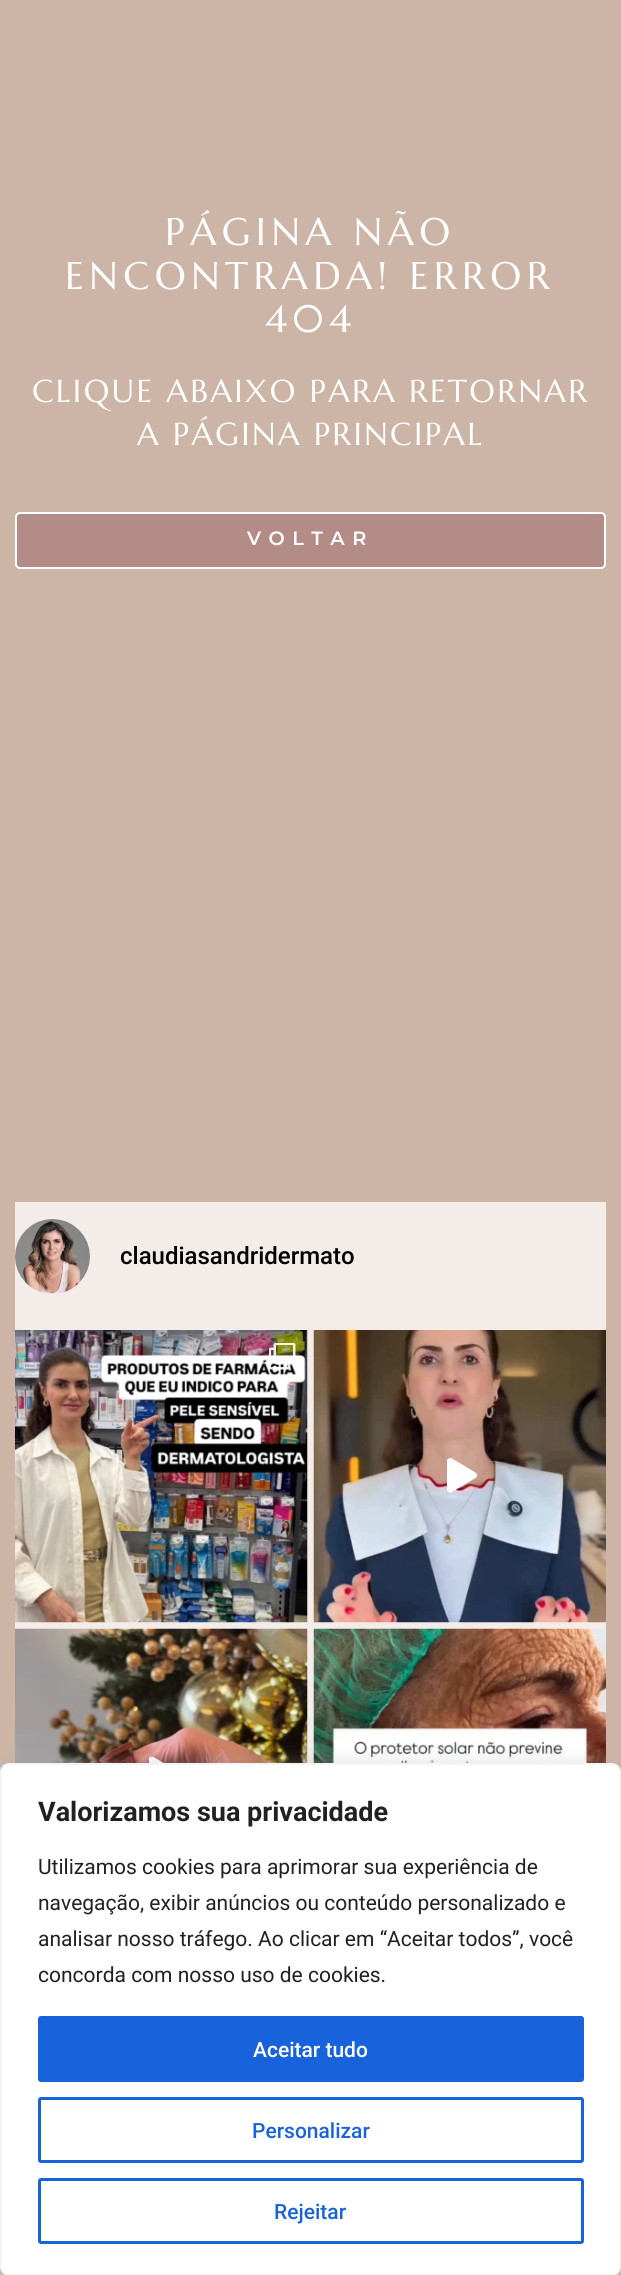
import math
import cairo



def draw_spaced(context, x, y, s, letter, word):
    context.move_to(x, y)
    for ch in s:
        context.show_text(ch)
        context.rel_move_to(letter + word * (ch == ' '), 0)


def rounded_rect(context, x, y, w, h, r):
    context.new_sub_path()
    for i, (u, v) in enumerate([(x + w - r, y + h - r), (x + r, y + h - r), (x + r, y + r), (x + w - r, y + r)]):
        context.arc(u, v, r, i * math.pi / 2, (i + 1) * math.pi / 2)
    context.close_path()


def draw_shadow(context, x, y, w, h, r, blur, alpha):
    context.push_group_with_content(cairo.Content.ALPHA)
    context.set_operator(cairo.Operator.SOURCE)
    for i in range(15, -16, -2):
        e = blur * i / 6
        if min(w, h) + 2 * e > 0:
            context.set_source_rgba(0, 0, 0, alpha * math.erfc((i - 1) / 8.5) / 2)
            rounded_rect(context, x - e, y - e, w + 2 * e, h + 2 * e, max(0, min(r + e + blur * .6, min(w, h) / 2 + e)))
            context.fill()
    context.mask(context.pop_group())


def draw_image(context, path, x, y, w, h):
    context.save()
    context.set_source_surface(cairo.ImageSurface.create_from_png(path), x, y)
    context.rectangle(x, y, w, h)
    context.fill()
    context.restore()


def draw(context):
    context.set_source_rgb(204 / 255, 181 / 255, 166 / 255)
    context.paint()
    context.set_source_rgb(180 / 255, 140 / 255, 135 / 255)
    rounded_rect(context, 16, 513, 589, 55, 4)
    context.fill_preserve()
    context.set_source_rgb(1, 1, 1)
    context.stroke()
    context.set_source_rgb(243 / 255, 236 / 255, 233 / 255)
    context.rectangle(15, 1202, 591, 561)
    context.fill()
    draw_image(context, "images/1.png", 15, 1219, 75, 75)
    draw_image(context, "images/2.png", 15, 1330, 293, 293)
    draw_image(context, "images/3.png", 269, 1343, 27, 27)
    draw_image(context, "images/4.png", 313, 1330, 293, 293)
    context.set_source_rgb(1, 1, 1)
    context.new_path()
    context.move_to(475.5, 1472.5)
    context.line_to(452, 1458.5)
    context.curve_to(450, 1457.5, 447, 1458.5, 447, 1461)
    context.line_to(447, 1489.5)
    context.curve_to(447, 1492, 449.5, 1493.5, 452, 1492)
    context.line_to(475.5, 1478)
    context.curve_to(477.5, 1477, 477.5, 1473.5, 475.5, 1472.5)
    context.close_path()
    context.fill()
    draw_image(context, "images/5.png", 15, 1628, 293, 135)
    context.save()
    context.rectangle(149, 1757, 30, 34)
    context.clip()
    context.new_path()
    context.move_to(177, 1771)
    context.line_to(153.5, 1757)
    context.curve_to(151.5, 1756, 148.5, 1757, 148.5, 1759.5)
    context.line_to(148.5, 1788)
    context.curve_to(148.5, 1790.5, 151, 1792, 153.5, 1790.5)
    context.line_to(177, 1776.5)
    context.curve_to(179, 1775.5, 179, 1772, 177, 1771)
    context.close_path()
    context.fill()
    context.restore()
    draw_image(context, "images/6.png", 313, 1628, 293, 135)
    context.save()
    context.rectangle(447, 1757, 30, 34)
    context.clip()
    context.new_path()
    context.move_to(475.5, 1771)
    context.line_to(452, 1757)
    context.curve_to(450, 1756, 447, 1757, 447, 1759.5)
    context.line_to(447, 1788)
    context.curve_to(447, 1790.5, 449.5, 1792, 452, 1790.5)
    context.line_to(475.5, 1776.5)
    context.curve_to(477.5, 1775.5, 477.5, 1772, 475.5, 1771)
    context.close_path()
    context.fill()
    context.restore()
    context.set_source_rgb(172 / 255, 171 / 255, 171 / 255)
    draw_shadow(context, 0, 1761, 621, 513, 9, 7.5, 0.3)
    context.set_source_rgb(1, 1, 1)
    rounded_rect(context, 1, 1764, 619, 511, 8)
    context.fill_preserve()
    context.set_source_rgb(244 / 255, 244 / 255, 244 / 255)
    context.stroke()
    context.set_source_rgb(24 / 255, 99 / 255, 220 / 255)
    rounded_rect(context, 39.5, 2017.5, 543, 63, 1.5)
    context.fill_preserve()
    context.set_line_width(3)
    context.stroke()
    rounded_rect(context, 39.5, 2098.5, 543, 63, 1.5)
    context.stroke()
    rounded_rect(context, 39.5, 2179.5, 543, 63, 1.5)
    context.stroke()
    context.select_font_face("Marcellus")
    context.set_font_size(38.4)
    context.set_source_rgb(1, 1, 1)
    draw_spaced(context, 165, 245, "PÁGINA NÃO", 5.5, 0)
    draw_spaced(context, 65, 289, "ENCONTRADA! ERROR", 5.5, 0)
    draw_spaced(context, 265, 332, "404", 5.5, 0)
    context.set_font_size(31.7)
    draw_spaced(context, 32, 402, "CLIQUE ABAIXO PARA RETORNAR", 2.4, 0)
    draw_spaced(context, 137, 445, "A PÁGINA PRINCIPAL", 2.4, 0)
    context.select_font_face("Montserrat SemiBold")
    context.set_font_size(19.25)
    draw_spaced(context, 247, 545, "VOLTAR", 7.5, 0)
    context.select_font_face("Roboto Medium")
    context.set_font_size(24)
    context.set_source_rgb(0, 0, 0)
    context.move_to(120, 1264)
    context.show_text("claudiasandridermato")
    context.select_font_face("Roboto", cairo.FontSlant.NORMAL, cairo.FontWeight.BOLD)
    context.set_font_size(27)
    context.set_source_rgb(33 / 255, 33 / 255, 33 / 255)
    context.move_to(38, 1821)
    context.show_text("Valorizamos sua privacidade")
    context.select_font_face("Roboto")
    context.set_font_size(21)
    context.move_to(38, 1874)
    context.show_text("Utilizamos cookies para aprimorar sua experiência de")
    context.move_to(38, 1910)
    context.show_text("navegação, exibir anúncios ou conteúdo personalizado e")
    context.move_to(38, 1946)
    context.show_text("analisar nosso tráfego. Ao clicar em “Aceitar todos”, você")
    context.move_to(38, 1982)
    context.show_text("concorda com nosso uso de cookies.")
    context.select_font_face("Roboto Medium")
    context.set_source_rgb(1, 1, 1)
    context.move_to(253, 2057)
    context.show_text("Aceitar tudo")
    context.set_source_rgb(24 / 255, 99 / 255, 220 / 255)
    context.move_to(252, 2138)
    context.show_text("Personalizar")
    context.move_to(274, 2219)
    context.show_text("Rejeitar")


surface = cairo.ImageSurface(cairo.Format.RGB24, 621, 2275)
context = cairo.Context(surface)
options = cairo.FontOptions()
options.set_hint_metrics(cairo.HintMetrics.OFF)
options.set_hint_style(cairo.HintStyle.NONE)
context.set_font_options(options)
context.set_miter_limit(4)
draw(context)
surface.write_to_png("out.png")
